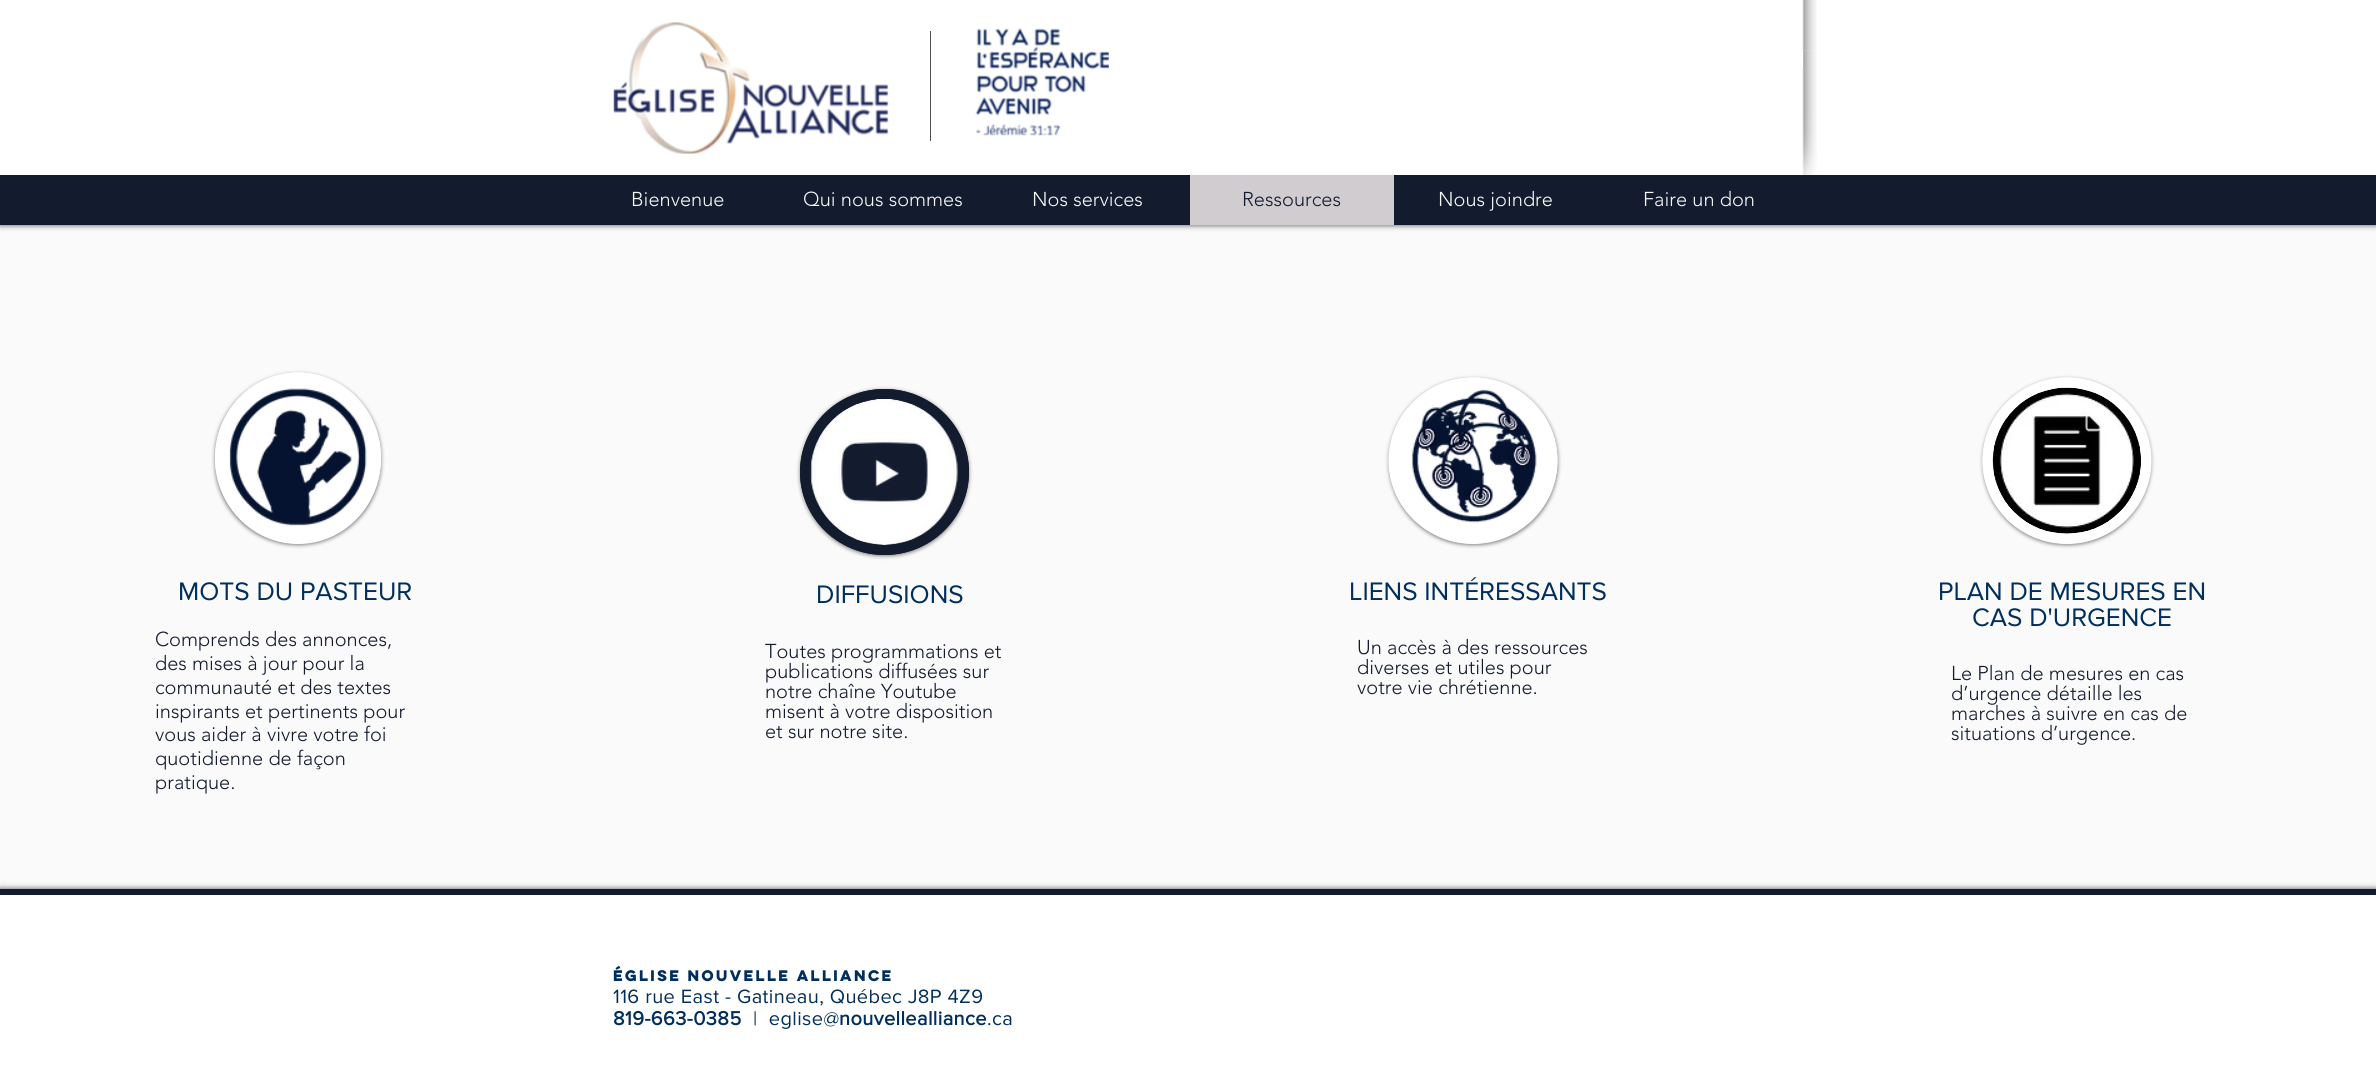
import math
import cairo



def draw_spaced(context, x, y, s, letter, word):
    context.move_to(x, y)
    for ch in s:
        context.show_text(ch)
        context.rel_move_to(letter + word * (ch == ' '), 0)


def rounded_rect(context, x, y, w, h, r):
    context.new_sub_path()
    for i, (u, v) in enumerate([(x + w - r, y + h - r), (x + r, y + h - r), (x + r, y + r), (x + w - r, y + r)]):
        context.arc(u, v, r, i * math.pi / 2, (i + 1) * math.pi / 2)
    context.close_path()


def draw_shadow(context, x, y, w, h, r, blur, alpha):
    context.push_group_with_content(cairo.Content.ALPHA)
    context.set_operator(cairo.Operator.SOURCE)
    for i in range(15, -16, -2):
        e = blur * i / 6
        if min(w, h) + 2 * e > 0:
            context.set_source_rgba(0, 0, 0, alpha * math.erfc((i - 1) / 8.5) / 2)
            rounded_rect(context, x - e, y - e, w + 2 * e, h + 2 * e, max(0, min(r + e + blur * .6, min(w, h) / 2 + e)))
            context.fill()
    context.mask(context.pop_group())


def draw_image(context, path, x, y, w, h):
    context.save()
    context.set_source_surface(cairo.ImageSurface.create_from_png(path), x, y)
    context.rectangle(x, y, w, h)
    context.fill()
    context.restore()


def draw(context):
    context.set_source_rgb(250 / 255, 250 / 255, 250 / 255)
    context.paint()
    context.set_source_rgb(0, 0, 0)
    draw_shadow(context, 0, 0, 2376, 225, 0, 3, 0.7)
    context.set_source_rgb(1, 1, 1)
    context.rectangle(0, 0, 2376, 175)
    context.fill()
    draw_image(context, "images/1.png", 613, 22, 276, 132)
    context.set_source_rgb(83 / 255, 79 / 255, 82 / 255)
    context.rectangle(930, 31, 1, 110)
    context.fill()
    draw_image(context, "images/2.png", 975, 28, 134, 108)
    draw_image(context, "images/4.png", 1803, 50, 14, 19)
    draw_image(context, "images/3.png", 1802, 0, 15, 51)
    draw_image(context, "images/5.png", 1802, 68, 15, 107)
    context.set_source_rgb(19 / 255, 28 / 255, 46 / 255)
    context.rectangle(0, 175, 2376, 50)
    context.fill()
    context.set_source_rgb(209 / 255, 204 / 255, 208 / 255)
    context.rectangle(1190, 175, 204, 50)
    context.fill()
    context.set_source_rgb(0, 0, 0)
    draw_shadow(context, 215, 374, 166, 171, 83, 2, 0.5)
    context.set_source_rgb(1, 1, 1)
    context.new_path()
    context.move_to(298, 372.5)
    context.curve_to(344, 372.5, 381, 411, 381, 458)
    context.curve_to(381, 505, 344, 543.5, 298, 543.5)
    context.curve_to(252, 543.5, 215, 505, 215, 458)
    context.curve_to(215, 411, 252, 372.5, 298, 372.5)
    context.close_path()
    context.fill()
    context.new_path()
    context.move_to(298, 377.5)
    context.curve_to(341.5, 377.5, 376, 413.5, 376, 458)
    context.curve_to(376, 502.5, 341.5, 539, 298, 539)
    context.curve_to(255, 539, 220, 502.5, 220, 458)
    context.curve_to(220, 413.5, 255, 377.5, 298, 377.5)
    context.close_path()
    context.set_line_width(10)
    context.stroke()
    draw_image(context, "images/6.png", 229, 388, 138, 138)
    context.set_source_rgb(0, 0, 0)
    draw_shadow(context, 800, 390, 169, 166, 83, 2, 0.5)
    context.set_source_rgb(19 / 255, 28 / 255, 46 / 255)
    context.new_path()
    context.move_to(884.5, 389)
    context.curve_to(931, 389, 969, 426, 969, 472)
    context.curve_to(969, 518, 931, 555, 884.5, 555)
    context.curve_to(838, 555, 800, 518, 800, 472)
    context.curve_to(800, 426, 838, 389, 884.5, 389)
    context.close_path()
    context.fill()
    context.new_path()
    context.move_to(884.5, 394)
    context.curve_to(928, 394, 964, 428.5, 964, 472)
    context.curve_to(964, 515, 928, 550, 884.5, 550)
    context.curve_to(840.5, 550, 805, 515, 805, 472)
    context.curve_to(805, 428.5, 840.5, 394, 884.5, 394)
    context.close_path()
    context.stroke()
    draw_image(context, "images/7.png", 810, 399, 148, 146)
    context.set_source_rgb(0, 0, 0)
    draw_shadow(context, 1389, 379, 169, 166, 83, 2, 0.5)
    context.set_source_rgb(1, 1, 1)
    context.new_path()
    context.move_to(1473, 377.5)
    context.curve_to(1519.5, 377.5, 1557.5, 414.5, 1557.5, 460.5)
    context.curve_to(1557.5, 506.5, 1519.5, 543.5, 1473, 543.5)
    context.curve_to(1426.5, 543.5, 1388.5, 506.5, 1388.5, 460.5)
    context.curve_to(1388.5, 414.5, 1426.5, 377.5, 1473, 377.5)
    context.close_path()
    context.fill()
    context.new_path()
    context.move_to(1473, 382.5)
    context.curve_to(1517, 382.5, 1552.5, 417.5, 1552.5, 460.5)
    context.curve_to(1552.5, 504, 1517, 539, 1473, 539)
    context.curve_to(1429.5, 539, 1394, 504, 1394, 460.5)
    context.curve_to(1394, 417.5, 1429.5, 382.5, 1473, 382.5)
    context.close_path()
    context.stroke()
    draw_image(context, "images/8.png", 1411, 389, 126, 134)
    context.set_source_rgb(0, 0, 0)
    draw_shadow(context, 1983, 379, 168, 166, 83, 2, 0.5)
    context.set_source_rgb(1, 1, 1)
    context.new_path()
    context.move_to(2067, 377.5)
    context.curve_to(2113.5, 377.5, 2151.5, 414.5, 2151.5, 460.5)
    context.curve_to(2151.5, 506.5, 2113.5, 543.5, 2067, 543.5)
    context.curve_to(2020.5, 543.5, 1982.5, 506.5, 1982.5, 460.5)
    context.curve_to(1982.5, 414.5, 2020.5, 377.5, 2067, 377.5)
    context.close_path()
    context.fill()
    context.new_path()
    context.move_to(2067, 382.5)
    context.curve_to(2110.5, 382.5, 2146, 417.5, 2146, 460.5)
    context.curve_to(2146, 504, 2110.5, 539, 2067, 539)
    context.curve_to(2023, 539, 1987.5, 504, 1987.5, 460.5)
    context.curve_to(1987.5, 417.5, 2023, 382.5, 2067, 382.5)
    context.close_path()
    context.stroke()
    draw_image(context, "images/9.png", 1992, 387, 149, 147)
    context.set_source_rgb(0, 0, 0)
    draw_shadow(context, 0, 889, 2376, 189, 0, 3, 0.7)
    context.set_source_rgb(19 / 255, 28 / 255, 46 / 255)
    context.rectangle(0, 889, 2376, 6)
    context.fill()
    context.set_source_rgb(1, 1, 1)
    context.rectangle(0, 895, 2376, 174)
    context.fill()
    context.select_font_face("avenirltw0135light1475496 Light")
    context.set_font_size(20)
    context.set_source_rgb(247 / 255, 247 / 255, 247 / 255)
    context.move_to(631, 206)
    context.show_text("Bienvenue")
    context.move_to(803, 206)
    context.show_text("Qui nous sommes")
    context.move_to(1032, 206)
    context.show_text("Nos services")
    context.set_source_rgb(19 / 255, 28 / 255, 46 / 255)
    context.move_to(1242, 206)
    context.show_text("Ressources")
    context.set_source_rgb(247 / 255, 247 / 255, 247 / 255)
    context.move_to(1438, 206)
    context.show_text("Nous joindre")
    context.move_to(1643, 206)
    context.show_text("Faire un don")
    context.select_font_face("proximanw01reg")
    context.set_font_size(26.25)
    context.set_source_rgb(0, 46 / 255, 93 / 255)
    context.move_to(178, 600)
    context.show_text("MOTS DU PASTEUR")
    context.select_font_face("avenirltw0135light1475496 Light")
    context.set_font_size(20)
    context.set_source_rgb(19 / 255, 28 / 255, 46 / 255)
    context.move_to(155, 646)
    context.show_text("Comprends des annonces,")
    context.move_to(155, 670)
    context.show_text("des mises à jour pour la")
    context.move_to(155, 694)
    context.show_text("communauté et des textes")
    context.move_to(155, 718)
    context.show_text("inspirants et pertinents pour")
    context.move_to(155, 741)
    context.show_text("vous aider à vivre votre foi")
    context.move_to(155, 765)
    context.show_text("quotidienne de façon")
    context.move_to(155, 789)
    context.show_text("pratique.")
    context.select_font_face("proximanw01reg")
    context.set_font_size(26.25)
    context.set_source_rgb(0, 46 / 255, 93 / 255)
    context.move_to(816, 603)
    context.show_text("DIFFUSIONS")
    context.select_font_face("avenirltw0135light1475496 Light")
    context.set_font_size(20)
    context.set_source_rgb(19 / 255, 28 / 255, 46 / 255)
    context.move_to(765, 658)
    context.show_text("Toutes programmations et")
    context.move_to(765, 678)
    context.show_text("publications diffusées sur")
    context.move_to(765, 698)
    context.show_text("notre chaîne Youtube")
    context.move_to(765, 718)
    context.show_text("misent à votre disposition")
    context.move_to(765, 738)
    context.show_text("et sur notre site.")
    context.select_font_face("proximanw01reg")
    context.set_font_size(26.25)
    context.set_source_rgb(0, 46 / 255, 93 / 255)
    context.move_to(1349, 600)
    context.show_text("LIENS INTÉRESSANTS")
    context.select_font_face("avenirltw0135light1475496 Light")
    context.set_font_size(20)
    context.set_source_rgb(19 / 255, 28 / 255, 46 / 255)
    context.move_to(1357, 654)
    context.show_text("Un accès à des ressources")
    context.move_to(1357, 674)
    context.show_text("diverses et utiles pour")
    context.move_to(1357, 694)
    context.show_text("votre vie chrétienne.")
    context.select_font_face("proximanw01reg")
    context.set_font_size(26.25)
    context.set_source_rgb(0, 46 / 255, 93 / 255)
    context.move_to(1938, 600)
    context.show_text("PLAN DE MESURES EN")
    context.move_to(1972, 626)
    context.show_text("CAS D'URGENCE")
    context.select_font_face("avenirltw0135light1475496 Light")
    context.set_font_size(20)
    context.set_source_rgb(19 / 255, 28 / 255, 46 / 255)
    context.move_to(1951, 680)
    context.show_text("Le Plan de mesures en cas")
    context.move_to(1951, 700)
    context.show_text("d’urgence détaille les")
    context.move_to(1951, 720)
    context.show_text("marches à suivre en cas de")
    context.move_to(1951, 740)
    context.show_text("situations d’urgence.")
    context.select_font_face("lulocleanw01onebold", cairo.FontSlant.NORMAL, cairo.FontWeight.BOLD)
    context.set_font_size(13.75)
    context.set_source_rgb(0, 46 / 255, 93 / 255)
    draw_spaced(context, 613, 981, "Église Nouvelle Alliance", -0.7, 0)
    context.select_font_face("proximanw01reg")
    context.set_font_size(20)
    draw_spaced(context, 613, 1003, "116 rue East - Gatineau, Québec J8P 4Z9", 0.4, 0)
    context.select_font_face("proximanw01reg", cairo.FontSlant.NORMAL, cairo.FontWeight.BOLD)
    draw_spaced(context, 613, 1025, "819-663-0385", 0.4, 0)
    context.select_font_face("proximanw01reg")
    draw_spaced(context, 753, 1025, "|  eglise@", 0.4, 0)
    context.select_font_face("proximanw01reg", cairo.FontSlant.NORMAL, cairo.FontWeight.BOLD)
    draw_spaced(context, 839, 1025, "nouvellealliance", 0.4, 0)
    context.select_font_face("proximanw01reg")
    draw_spaced(context, 987, 1025, ".ca", 0.4, 0)


surface = cairo.ImageSurface(cairo.Format.RGB24, 2376, 1069)
context = cairo.Context(surface)
options = cairo.FontOptions()
options.set_hint_metrics(cairo.HintMetrics.OFF)
options.set_hint_style(cairo.HintStyle.NONE)
context.set_font_options(options)
context.set_miter_limit(4)
draw(context)
surface.write_to_png("out.png")
